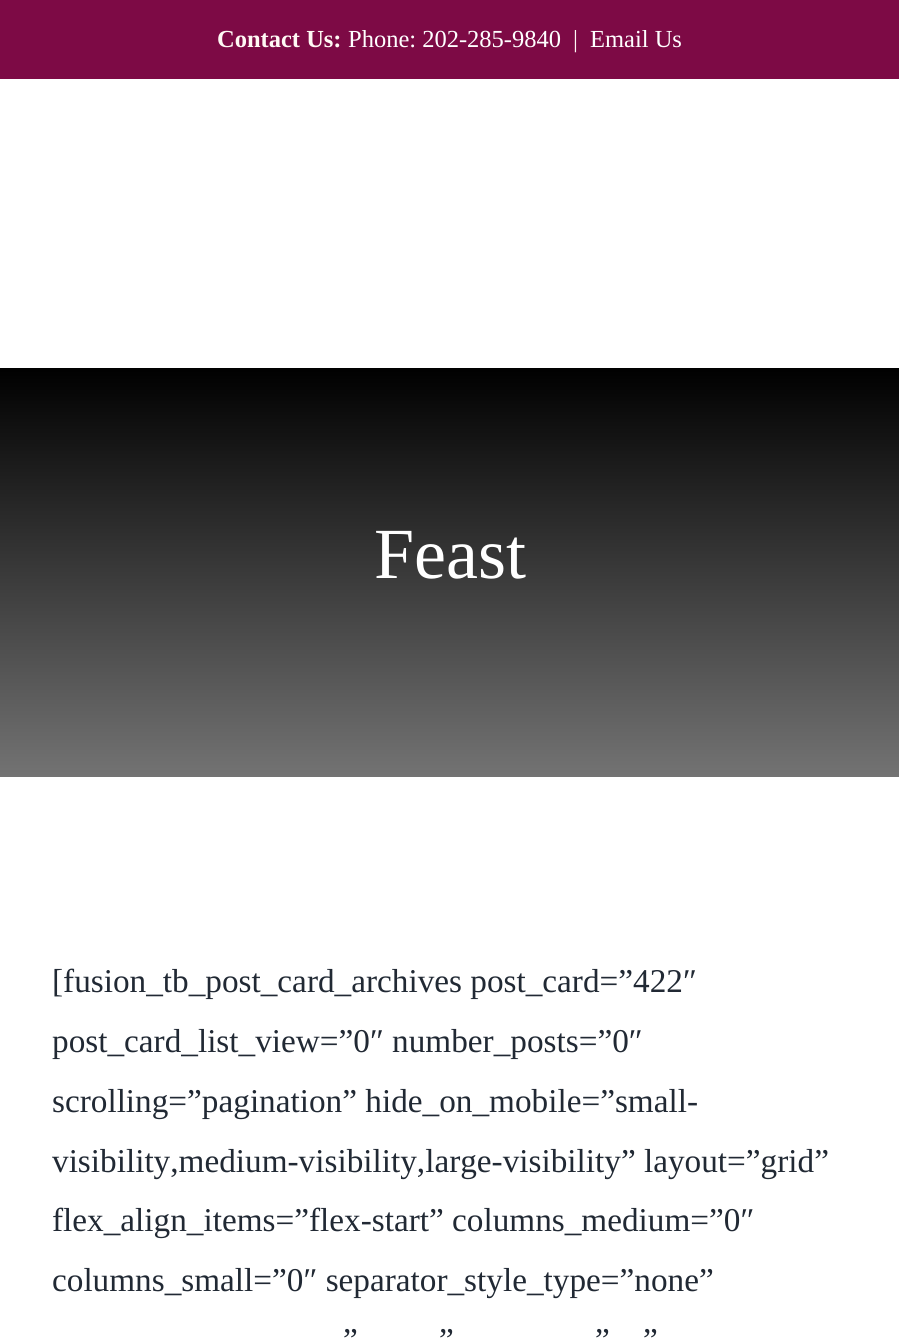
import math
import cairo



def draw(context):
    context.set_source_rgb(1, 1, 1)
    context.paint()
    context.set_source_rgb(125 / 255, 10 / 255, 69 / 255)
    context.rectangle(0, 0, 899, 79)
    context.fill()
    gradient = cairo.LinearGradient(450, 367, 450, 777)
    gradient.add_color_stop_rgba(0, 0, 0, 0, 1)
    gradient.add_color_stop_rgba(1, 115 / 255, 115 / 255, 115 / 255, 1)
    context.set_source(gradient)
    context.rectangle(0, 368, 899, 409)
    context.fill()
    context.select_font_face("Liberation Serif", cairo.FontSlant.NORMAL, cairo.FontWeight.BOLD)
    context.set_font_size(24.5)
    context.set_source_rgb(1, 249 / 255, 244 / 255)
    context.move_to(217, 47)
    context.show_text("Contact Us:")
    context.select_font_face("Liberation Serif")
    context.set_source_rgb(1, 1, 1)
    context.move_to(348, 47)
    context.show_text("Phone: 202-285-9840")
    context.set_source_rgb(1, 249 / 255, 244 / 255)
    context.move_to(573, 47)
    context.show_text("|")
    context.set_source_rgb(1, 1, 1)
    context.move_to(590, 47)
    context.show_text("Email Us")
    context.set_font_size(72)
    context.move_to(374, 578)
    context.show_text("Feast")
    context.set_font_size(33.25)
    context.set_source_rgb(33 / 255, 41 / 255, 52 / 255)
    context.move_to(52, 992)
    context.show_text("[fusion_tb_post_card_archives post_card=”422″")
    context.move_to(52, 1052)
    context.show_text("post_card_list_view=”0″ number_posts=”0″")
    context.move_to(52, 1112)
    context.show_text("scrolling=”pagination” hide_on_mobile=”small-")
    context.move_to(52, 1172)
    context.show_text("visibility,medium-visibility,large-visibility” layout=”grid”")
    context.move_to(52, 1231)
    context.show_text("flex_align_items=”flex-start” columns_medium=”0″")
    context.move_to(52, 1291)
    context.show_text("columns_small=”0″ separator_style_type=”none”")
    context.move_to(343, 1351)
    context.show_text("”")
    context.move_to(439, 1351)
    context.show_text("”")
    context.move_to(595, 1351)
    context.show_text("”")
    context.move_to(643, 1351)
    context.show_text("”")


surface = cairo.ImageSurface(cairo.Format.RGB24, 899, 1340)
context = cairo.Context(surface)
options = cairo.FontOptions()
options.set_hint_metrics(cairo.HintMetrics.OFF)
options.set_hint_style(cairo.HintStyle.NONE)
context.set_font_options(options)
context.set_miter_limit(4)
draw(context)
surface.write_to_png("out.png")
